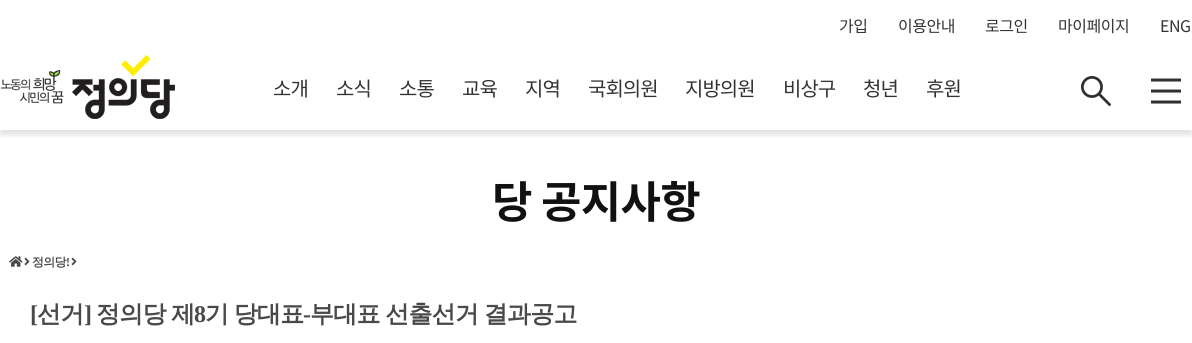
import math
import cairo



def draw_spaced(context, x, y, s, letter, word):
    context.move_to(x, y)
    for ch in s:
        context.show_text(ch)
        context.rel_move_to(letter + word * (ch == ' '), 0)


def rounded_rect(context, x, y, w, h, r):
    context.new_sub_path()
    for i, (u, v) in enumerate([(x + w - r, y + h - r), (x + r, y + h - r), (x + r, y + r), (x + w - r, y + r)]):
        context.arc(u, v, r, i * math.pi / 2, (i + 1) * math.pi / 2)
    context.close_path()


def draw_shadow(context, x, y, w, h, r, blur, alpha):
    context.push_group_with_content(cairo.Content.ALPHA)
    context.set_operator(cairo.Operator.SOURCE)
    for i in range(15, -16, -2):
        e = blur * i / 6
        if min(w, h) + 2 * e > 0:
            context.set_source_rgba(0, 0, 0, alpha * math.erfc((i - 1) / 8.5) / 2)
            rounded_rect(context, x - e, y - e, w + 2 * e, h + 2 * e, max(0, min(r + e + blur * .6, min(w, h) / 2 + e)))
            context.fill()
    context.mask(context.pop_group())


def draw_image(context, path, x, y, w, h):
    context.save()
    context.set_source_surface(cairo.ImageSurface.create_from_png(path), x, y)
    context.rectangle(x, y, w, h)
    context.fill()
    context.restore()


def draw(context):
    context.set_source_rgb(1, 1, 1)
    context.paint()
    context.save()
    context.rectangle(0, 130, 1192, 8)
    context.clip()
    context.set_source_rgb(0, 0, 0)
    draw_shadow(context, 0, 59, 1192, 76, 0, 3, 0.12)
    context.restore()
    draw_image(context, "images/1.png", 1, 55, 174, 64)
    draw_image(context, "images/2.png", 1081, 76, 30, 30)
    draw_image(context, "images/3.png", 1151, 78, 30, 26)
    draw_image(context, "images/4.png", 9, 256, 14, 11)
    draw_image(context, "images/5.png", 24, 257, 6, 9)
    draw_image(context, "images/5.png", 71, 257, 6, 9)
    context.select_font_face("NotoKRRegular")
    context.set_font_size(16)
    context.set_source_rgb(51 / 255, 51 / 255, 51 / 255)
    draw_spaced(context, 839, 32, "가입", -0.5, 0)
    draw_spaced(context, 898, 32, "이용안내", -0.5, 0)
    draw_spaced(context, 985, 32, "로그인", -0.5, 0)
    draw_spaced(context, 1058, 32, "마이페이지", -0.5, 0)
    draw_spaced(context, 1160, 32, "ENG", -0.5, 0)
    context.set_font_size(20)
    draw_spaced(context, 273, 96, "소개", -1, 0)
    draw_spaced(context, 336, 96, "소식", -1, 0)
    draw_spaced(context, 399, 96, "소통", -1, 0)
    draw_spaced(context, 462, 96, "교육", -1, 0)
    draw_spaced(context, 525, 96, "지역", -1, 0)
    draw_spaced(context, 588, 96, "국회의원", -1, 0)
    draw_spaced(context, 685, 96, "지방의원", -1, 0)
    draw_spaced(context, 783, 96, "비상구", -1, 0)
    draw_spaced(context, 863, 96, "청년", -1, 0)
    draw_spaced(context, 926, 96, "후원", -1, 0)
    context.select_font_face("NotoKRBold", cairo.FontSlant.NORMAL, cairo.FontWeight.BOLD)
    context.set_font_size(44)
    context.set_source_rgb(17 / 255, 17 / 255, 17 / 255)
    draw_spaced(context, 492, 218, "당 공지사항", -0.75, 0)
    context.select_font_face("WenQuanYi Zen Hei", cairo.FontSlant.NORMAL, cairo.FontWeight.BOLD)
    context.set_font_size(12)
    context.set_source_rgb(73 / 255, 73 / 255, 73 / 255)
    draw_spaced(context, 32, 266, "정의당", -0.75, 0)
    context.select_font_face("Liberation Serif", cairo.FontSlant.NORMAL, cairo.FontWeight.BOLD)
    draw_spaced(context, 66, 266, "!", -0.75, 0)
    context.set_font_size(24)
    draw_spaced(context, 30, 322, "[", -0.75, 0)
    context.select_font_face("WenQuanYi Zen Hei", cairo.FontSlant.NORMAL, cairo.FontWeight.BOLD)
    draw_spaced(context, 37, 322, "선거", -0.75, 0)
    context.select_font_face("Liberation Serif", cairo.FontSlant.NORMAL, cairo.FontWeight.BOLD)
    draw_spaced(context, 84, 322, "]", -0.75, 0)
    context.select_font_face("WenQuanYi Zen Hei", cairo.FontSlant.NORMAL, cairo.FontWeight.BOLD)
    draw_spaced(context, 96, 322, "정의당 제", -0.75, -1)
    context.select_font_face("Liberation Serif", cairo.FontSlant.NORMAL, cairo.FontWeight.BOLD)
    draw_spaced(context, 194, 322, "8", -0.75, 0)
    context.select_font_face("WenQuanYi Zen Hei", cairo.FontSlant.NORMAL, cairo.FontWeight.BOLD)
    draw_spaced(context, 205, 322, "기 당대표", -0.75, -1)
    context.select_font_face("Liberation Serif", cairo.FontSlant.NORMAL, cairo.FontWeight.BOLD)
    draw_spaced(context, 303, 322, "-", -0.75, 0)
    context.select_font_face("WenQuanYi Zen Hei", cairo.FontSlant.NORMAL, cairo.FontWeight.BOLD)
    draw_spaced(context, 310, 322, "부대표 선출선거 결과공고", -0.75, -1)


surface = cairo.ImageSurface(cairo.Format.RGB24, 1192, 343)
context = cairo.Context(surface)
options = cairo.FontOptions()
options.set_hint_metrics(cairo.HintMetrics.OFF)
options.set_hint_style(cairo.HintStyle.NONE)
context.set_font_options(options)
context.set_miter_limit(4)
draw(context)
surface.write_to_png("out.png")
